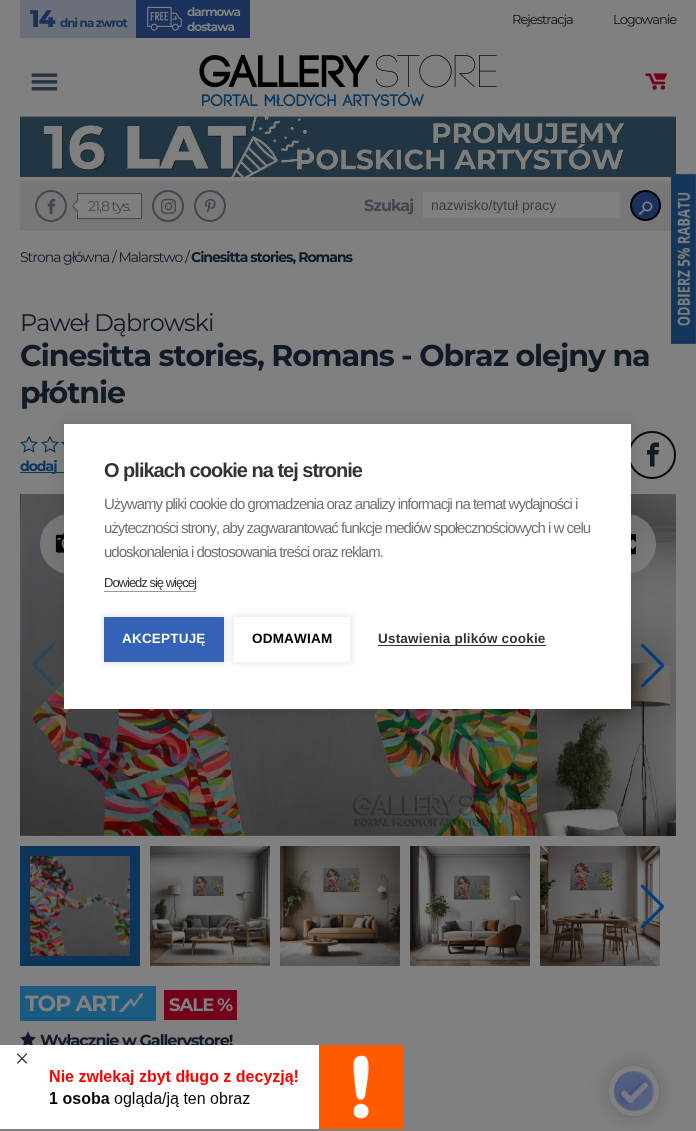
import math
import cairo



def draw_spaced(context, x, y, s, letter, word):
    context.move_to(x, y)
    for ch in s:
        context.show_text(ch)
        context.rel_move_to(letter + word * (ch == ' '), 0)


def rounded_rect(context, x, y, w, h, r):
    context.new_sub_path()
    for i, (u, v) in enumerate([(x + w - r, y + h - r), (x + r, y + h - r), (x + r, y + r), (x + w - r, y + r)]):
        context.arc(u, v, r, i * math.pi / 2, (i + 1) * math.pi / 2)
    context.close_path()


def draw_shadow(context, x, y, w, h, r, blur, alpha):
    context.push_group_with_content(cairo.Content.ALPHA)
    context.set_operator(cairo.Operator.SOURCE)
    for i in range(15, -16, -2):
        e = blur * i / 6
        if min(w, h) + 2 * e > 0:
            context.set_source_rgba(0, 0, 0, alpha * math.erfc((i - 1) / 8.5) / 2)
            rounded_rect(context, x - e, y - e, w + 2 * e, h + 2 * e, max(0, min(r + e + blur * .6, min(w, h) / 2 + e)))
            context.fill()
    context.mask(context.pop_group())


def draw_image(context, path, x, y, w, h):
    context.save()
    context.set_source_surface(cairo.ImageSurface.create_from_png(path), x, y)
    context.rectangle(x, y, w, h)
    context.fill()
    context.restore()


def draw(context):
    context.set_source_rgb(128 / 255, 128 / 255, 128 / 255)
    context.paint()
    context.set_source_rgb(107 / 255, 112 / 255, 120 / 255)
    context.rectangle(20, 0, 116, 38)
    context.fill()
    context.set_source_rgb(26 / 255, 49 / 255, 91 / 255)
    context.rectangle(136, 0, 114, 38)
    context.fill()
    draw_image(context, "images/1.png", 147, 6, 35, 25)
    draw_image(context, "images/2.png", 31, 73, 27, 18)
    draw_image(context, "images/3.png", 199, 54, 298, 53)
    draw_image(context, "images/4.png", 645, 73, 23, 17)
    draw_image(context, "images/5.png", 20, 116, 656, 61)
    context.set_source_rgb(119 / 255, 119 / 255, 120 / 255)
    context.rectangle(20, 181, 651, 50)
    context.fill()
    context.arc(51, 206, 15, 0, 2 * math.pi)
    context.set_source_rgb(66 / 255, 70 / 255, 77 / 255)
    context.stroke()
    draw_image(context, "images/6.png", 47, 198, 9, 16)
    context.set_source_rgb(128 / 255, 128 / 255, 128 / 255)
    context.rectangle(77.5, 193.5, 64, 25)
    context.fill_preserve()
    context.set_source_rgb(66 / 255, 70 / 255, 77 / 255)
    context.set_line_width(1)
    context.stroke()
    context.new_path()
    context.move_to(78, 199)
    context.line_to(78, 213)
    context.line_to(72, 206)
    context.close_path()
    context.fill()
    context.set_source_rgb(128 / 255, 128 / 255, 128 / 255)
    context.new_path()
    context.move_to(78, 201)
    context.line_to(78, 211)
    context.line_to(73, 206)
    context.close_path()
    context.fill()
    context.arc(168, 206, 15, 0, 2 * math.pi)
    context.set_source_rgb(66 / 255, 70 / 255, 77 / 255)
    context.set_line_width(2)
    context.stroke()
    draw_image(context, "images/7.png", 161, 198, 15, 16)
    context.arc(210, 206, 15, 0, 2 * math.pi)
    context.stroke()
    draw_image(context, "images/8.png", 205, 198, 11, 15)
    context.set_source_rgb(128 / 255, 128 / 255, 128 / 255)
    context.rectangle(423, 192, 197, 26)
    context.fill()
    context.set_source_rgb(26 / 255, 49 / 255, 91 / 255)
    context.arc(645.5, 205.5, 14.5, 0, 2 * math.pi)
    context.fill_preserve()
    context.set_source_rgb(0, 0, 0)
    context.stroke()
    draw_image(context, "images/9.png", 639, 201, 14, 14)
    draw_image(context, "images/10.png", 671, 173, 25, 171)
    draw_image(context, "images/11.png", 20, 435, 18, 18)
    draw_image(context, "images/11.png", 41, 435, 18, 18)
    draw_image(context, "images/12.png", 61, 441, 3, 4)
    context.set_source_rgb(13 / 255, 53 / 255, 92 / 255)
    context.rectangle(20, 472, 44, 1)
    context.fill()
    context.arc(652, 455, 23, 0, 2 * math.pi)
    context.set_source_rgb(10 / 255, 10 / 255, 10 / 255)
    context.stroke()
    draw_image(context, "images/13.png", 647, 442, 12, 25)
    draw_image(context, "images/14.png", 20, 494, 517, 342)
    draw_image(context, "images/15.png", 537, 494, 139, 342)
    draw_image(context, "images/16.png", 32, 643, 24, 44)
    draw_image(context, "images/17.png", 640, 643, 24, 44)
    context.set_source_rgba(128 / 255, 128 / 255, 128 / 255, 0.8)
    context.arc(70, 544, 30, 0, 2 * math.pi)
    context.fill()
    draw_image(context, "images/18.png", 55, 532, 9, 21)
    context.arc(626, 544, 30, 0, 2 * math.pi)
    context.fill()
    draw_image(context, "images/19.png", 631, 534, 5, 21)
    draw_image(context, "images/20.png", 30, 856, 100, 100)
    context.rectangle(25, 851, 110, 110)
    context.set_source_rgb(13 / 255, 53 / 255, 92 / 255)
    context.set_line_width(10)
    context.stroke()
    draw_image(context, "images/21.png", 150, 846, 120, 120)
    draw_image(context, "images/22.png", 280, 846, 120, 120)
    draw_image(context, "images/23.png", 410, 846, 120, 120)
    draw_image(context, "images/24.png", 540, 846, 120, 120)
    draw_image(context, "images/25.png", 32, 884, 24, 44)
    draw_image(context, "images/26.png", 640, 884, 24, 44)
    context.set_source_rgb(28 / 255, 91 / 255, 128 / 255)
    context.rectangle(20, 986, 136, 35)
    context.fill()
    context.set_source_rgb(115 / 255, 1 / 255, 25 / 255)
    context.rectangle(164, 990, 73, 30)
    context.fill()
    draw_image(context, "images/28.png", 20, 1031, 16, 14)
    context.set_source_rgb(0, 0, 0)
    draw_shadow(context, 64, 424, 567, 285, 0, 10, 0.1)
    context.set_source_rgb(1, 1, 1)
    context.rectangle(64, 424, 567, 285)
    context.fill()
    context.set_source_rgb(153 / 255, 153 / 255, 153 / 255)
    context.rectangle(104, 591, 92, 1)
    context.fill()
    context.set_source_rgb(0, 0, 0)
    draw_shadow(context, 104, 617, 120, 45, 0, 5, 0.12)
    context.set_source_rgb(51 / 255, 98 / 255, 182 / 255)
    context.rectangle(104, 617, 120, 45)
    context.fill()
    context.set_source_rgb(0, 0, 0)
    draw_shadow(context, 234, 617, 116, 45, 0, 5, 0.12)
    context.set_source_rgb(1, 1, 1)
    context.rectangle(234, 617, 116, 45)
    context.fill()
    context.set_source_rgb(51 / 255, 51 / 255, 51 / 255)
    context.rectangle(378, 645, 168, 1)
    context.fill()
    context.save()
    context.set_fill_rule(cairo.FillRule.EVEN_ODD)
    context.new_path()
    context.move_to(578, 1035)
    context.line_to(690, 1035)
    context.line_to(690, 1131)
    context.line_to(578, 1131)
    context.close_path()
    context.move_to(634, 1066)
    context.curve_to(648, 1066, 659, 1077, 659, 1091)
    context.curve_to(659, 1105, 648, 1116, 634, 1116)
    context.curve_to(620, 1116, 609, 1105, 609, 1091)
    context.curve_to(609, 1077, 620, 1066, 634, 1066)
    context.close_path()
    context.clip()
    context.set_source_rgb(0, 0, 0)
    draw_shadow(context, 609, 1066, 50, 50, 25, 10, 0.2)
    context.restore()
    draw_image(context, "images/30.png", 613, 1070, 42, 42)
    context.select_font_face("Montserrat ExtraBold")
    context.set_font_size(24)
    context.set_source_rgb(26 / 255, 49 / 255, 91 / 255)
    draw_spaced(context, 30, 27, "14", -1, 0)
    context.select_font_face("Montserrat", cairo.FontSlant.NORMAL, cairo.FontWeight.BOLD)
    context.set_font_size(12)
    draw_spaced(context, 60, 27, "dni na zwrot", -1, 0)
    context.set_source_rgb(128 / 255, 128 / 255, 128 / 255)
    draw_spaced(context, 187, 16, "darmowa", -1, 0)
    draw_spaced(context, 187, 31, "dostawa", -1, 0)
    context.select_font_face("Montserrat Thin")
    context.set_font_size(13)
    context.set_source_rgb(18 / 255, 16 / 255, 16 / 255)
    draw_spaced(context, 512, 24, "Rejestracja", -1, 0)
    draw_spaced(context, 613, 24, "Logowanie", -1, 0)
    context.set_font_size(14)
    context.set_source_rgb(66 / 255, 70 / 255, 77 / 255)
    draw_spaced(context, 88, 211, "21,8 tys.", -1, 0)
    context.select_font_face("Montserrat", cairo.FontSlant.NORMAL, cairo.FontWeight.BOLD)
    context.set_font_size(16)
    draw_spaced(context, 364, 211, "Szukaj", -1, 0)
    context.select_font_face("Liberation Sans")
    context.set_font_size(14)
    context.set_source_rgb(59 / 255, 59 / 255, 59 / 255)
    context.move_to(431, 210)
    context.show_text("nazwisko/tytuł pracy")
    context.select_font_face("Montserrat Thin")
    context.set_source_rgb(17 / 255, 26 / 255, 39 / 255)
    draw_spaced(context, 20, 262, "Strona główna / Malarstwo /", -1, 0)
    context.select_font_face("Montserrat", cairo.FontSlant.NORMAL, cairo.FontWeight.BOLD)
    draw_spaced(context, 191, 262, "Cinesitta stories, Romans", -1, 0)
    context.select_font_face("Montserrat Thin")
    context.set_font_size(24)
    draw_spaced(context, 20, 331, "Paweł Dąbrowski", -1, 0)
    context.select_font_face("Montserrat", cairo.FontSlant.NORMAL, cairo.FontWeight.BOLD)
    context.set_font_size(30)
    draw_spaced(context, 20, 366, "Cinesitta stories, Romans - Obraz olejny na", -1, 0)
    draw_spaced(context, 20, 403, "płótnie", -1, 0)
    context.set_font_size(14)
    context.set_source_rgb(13 / 255, 53 / 255, 92 / 255)
    draw_spaced(context, 20, 471, "dodaj", -1, 0)
    context.set_font_size(22)
    context.set_source_rgb(128 / 255, 128 / 255, 128 / 255)
    draw_spaced(context, 25, 1011, "TOP ART", -1, 0)
    draw_image(context, "images/27.png", 119, 993, 24, 19)
    context.set_font_size(18)
    draw_spaced(context, 169, 1011, "SALE %", -1, 0)
    context.set_font_size(16)
    context.set_source_rgb(17 / 255, 26 / 255, 39 / 255)
    draw_spaced(context, 40, 1046, "Wyłącznie w Gallerystore!", -1, 0)
    context.select_font_face("Liberation Sans", cairo.FontSlant.NORMAL, cairo.FontWeight.BOLD)
    context.set_font_size(20)
    context.set_source_rgb(51 / 255, 51 / 255, 51 / 255)
    draw_spaced(context, 104, 477, "O plikach cookie na tej stronie", -1, 0)
    context.select_font_face("Liberation Sans")
    context.set_font_size(15)
    context.set_source_rgb(112 / 255, 112 / 255, 112 / 255)
    draw_spaced(context, 104, 509, "Używamy pliki cookie do gromadzenia oraz analizy informacji na temat wydajności i", -1, 0)
    draw_spaced(context, 104, 533, "użyteczności strony, aby zagwarantować funkcje mediów społecznościowych i w celu", -1, 0)
    draw_spaced(context, 104, 557, "udoskonalenia i dostosowania treści oraz reklam.", -1, 0)
    context.set_font_size(13)
    context.set_source_rgb(51 / 255, 51 / 255, 51 / 255)
    draw_spaced(context, 104, 587, "Dowiedz się więcej", -1, 0)
    context.select_font_face("Liberation Sans", cairo.FontSlant.NORMAL, cairo.FontWeight.BOLD)
    context.set_font_size(13.5)
    context.set_source_rgb(1, 1, 1)
    draw_spaced(context, 122, 643, "AKCEPTUJĘ", 0.2, 0)
    context.set_source_rgb(0, 0, 0)
    draw_spaced(context, 252, 643, "ODMAWIAM", 0.2, 0)
    context.set_source_rgb(51 / 255, 51 / 255, 51 / 255)
    draw_spaced(context, 378, 643, "Ustawienia plików cookie", 0.2, 0)
    draw_image(context, "images/29.png", 0, 1045, 403, 84)


surface = cairo.ImageSurface(cairo.Format.RGB24, 696, 1131)
context = cairo.Context(surface)
options = cairo.FontOptions()
options.set_hint_metrics(cairo.HintMetrics.OFF)
options.set_hint_style(cairo.HintStyle.NONE)
context.set_font_options(options)
context.set_miter_limit(4)
draw(context)
surface.write_to_png("out.png")
